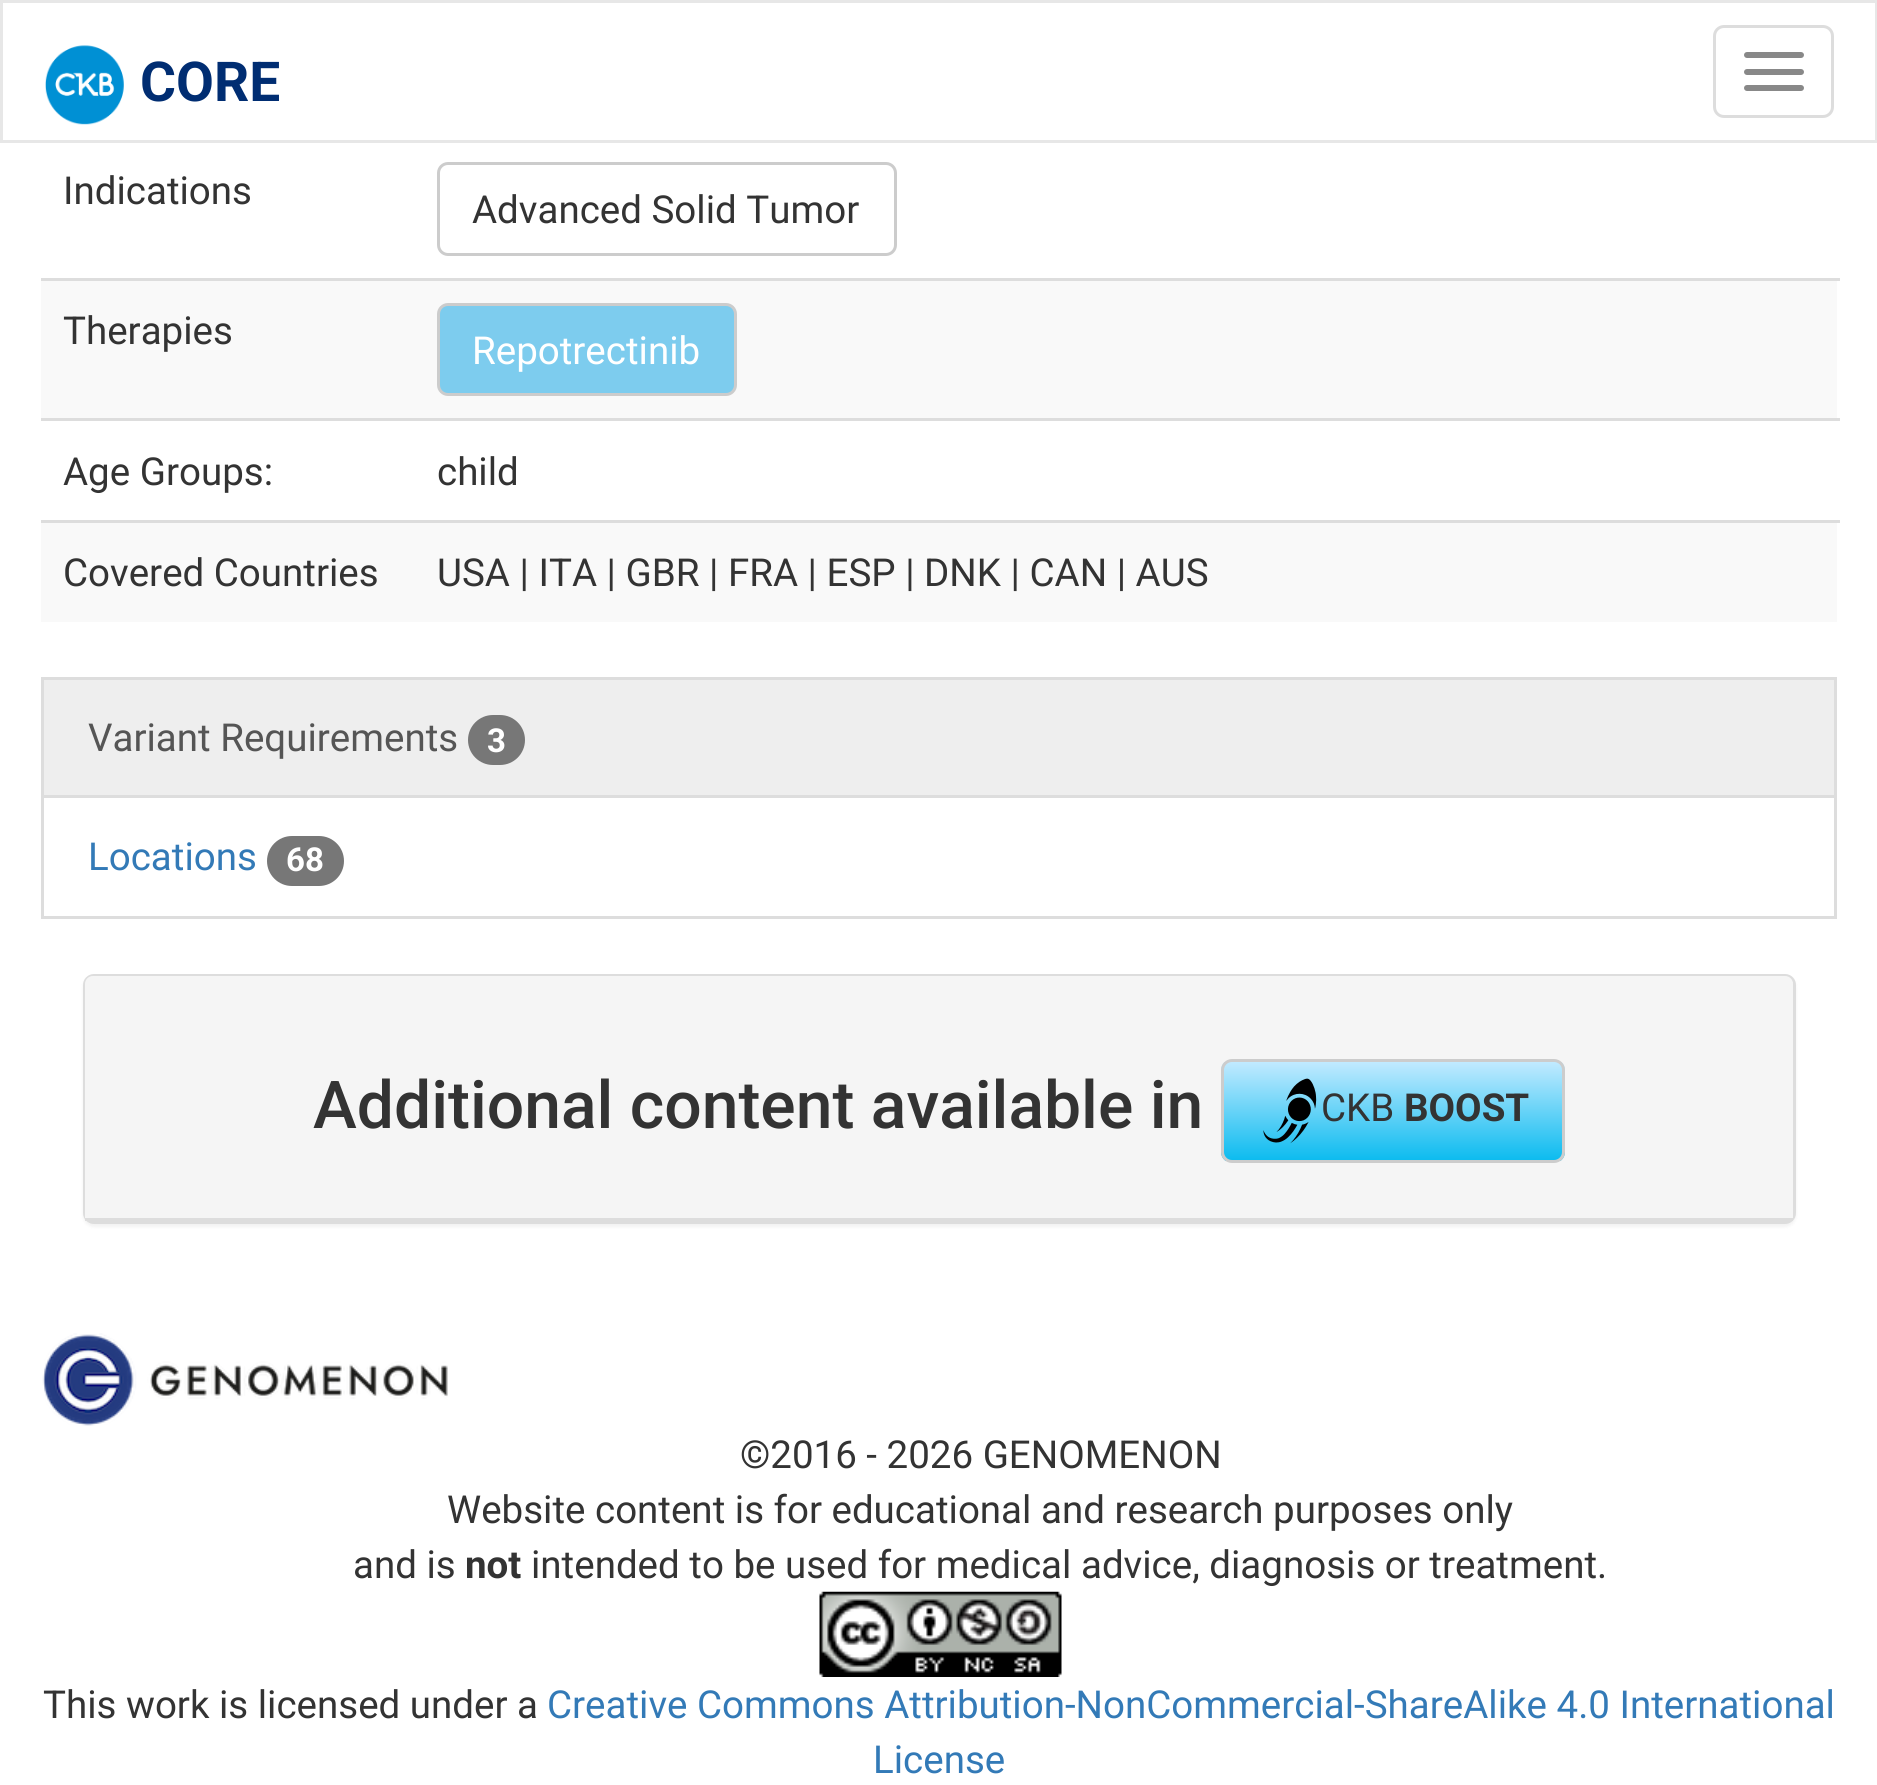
import math
import cairo



def rounded_rect(context, x, y, w, h, r):
    context.new_sub_path()
    for i, (u, v) in enumerate([(x + w - r, y + h - r), (x + r, y + h - r), (x + r, y + r), (x + w - r, y + r)]):
        context.arc(u, v, r, i * math.pi / 2, (i + 1) * math.pi / 2)
    context.close_path()


def draw_shadow(context, x, y, w, h, r, blur, alpha):
    context.push_group_with_content(cairo.Content.ALPHA)
    context.set_operator(cairo.Operator.SOURCE)
    for i in range(15, -16, -2):
        e = blur * i / 6
        if min(w, h) + 2 * e > 0:
            context.set_source_rgba(0, 0, 0, alpha * math.erfc((i - 1) / 8.5) / 2)
            rounded_rect(context, x - e, y - e, w + 2 * e, h + 2 * e, max(0, min(r + e + blur * .6, min(w, h) / 2 + e)))
            context.fill()
    context.mask(context.pop_group())


def draw_image(context, path, x, y, w, h):
    context.save()
    context.set_source_surface(cairo.ImageSurface.create_from_png(path), x, y)
    context.rectangle(x, y, w, h)
    context.fill()
    context.restore()


def draw(context):
    context.set_source_rgb(1, 1, 1)
    context.paint()
    context.rectangle(1.5, 1.5, 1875, 140)
    context.set_source_rgb(231 / 255, 231 / 255, 231 / 255)
    context.set_line_width(3)
    context.stroke()
    draw_image(context, "images/1.png", 45, 45, 79, 80)
    rounded_rect(context, 1714.5, 26.5, 118, 90, 9.5)
    context.set_source_rgb(221 / 255, 221 / 255, 221 / 255)
    context.stroke()
    context.set_source_rgb(136 / 255, 136 / 255, 136 / 255)
    rounded_rect(context, 1744, 52, 60, 6, 3)
    context.fill()
    rounded_rect(context, 1744, 69, 60, 6, 3)
    context.fill()
    rounded_rect(context, 1744, 85, 60, 6, 3)
    context.fill()
    rounded_rect(context, 438.5, 163.5, 457, 91, 9.5)
    context.set_source_rgb(204 / 255, 204 / 255, 204 / 255)
    context.stroke()
    context.set_source_rgb(249 / 255, 249 / 255, 249 / 255)
    context.rectangle(41, 281, 1796, 137)
    context.fill()
    context.set_source_rgb(221 / 255, 221 / 255, 221 / 255)
    context.rectangle(41, 278, 1799, 3)
    context.fill()
    context.set_source_rgb(125 / 255, 204 / 255, 238 / 255)
    rounded_rect(context, 438.5, 304.5, 297, 90, 9.5)
    context.fill_preserve()
    context.set_source_rgb(204 / 255, 204 / 255, 204 / 255)
    context.stroke()
    context.set_source_rgb(221 / 255, 221 / 255, 221 / 255)
    context.rectangle(41, 418, 1799, 3)
    context.fill()
    context.set_source_rgb(249 / 255, 249 / 255, 249 / 255)
    context.rectangle(41, 523, 1796, 99)
    context.fill()
    context.set_source_rgb(221 / 255, 221 / 255, 221 / 255)
    context.rectangle(41, 520, 1799, 3)
    context.fill()
    context.set_source_rgb(238 / 255, 238 / 255, 238 / 255)
    context.rectangle(42.5, 678.5, 1793, 118)
    context.fill_preserve()
    context.set_source_rgb(221 / 255, 221 / 255, 221 / 255)
    context.stroke()
    context.set_source_rgb(119 / 255, 119 / 255, 119 / 255)
    rounded_rect(context, 468, 715, 57, 50, 25)
    context.fill()
    context.rectangle(42.5, 796.5, 1793, 121)
    context.set_source_rgb(221 / 255, 221 / 255, 221 / 255)
    context.stroke()
    context.set_source_rgb(119 / 255, 119 / 255, 119 / 255)
    rounded_rect(context, 267, 836, 77, 50, 25)
    context.fill()
    context.set_source_rgb(0, 0, 0)
    draw_shadow(context, 83, 976, 1713, 251, 11, 1.5, 0.05)
    rounded_rect(context, 84.5, 975.5, 1710, 247, 9.5)
    context.set_source_rgb(221 / 255, 221 / 255, 221 / 255)
    context.stroke()
    context.set_source_rgb(245 / 255, 245 / 255, 245 / 255)
    context.new_path()
    context.move_to(93, 976)
    context.line_to(1785, 976)
    context.curve_to(1789.5, 976, 1793, 979.5, 1793, 984)
    context.line_to(1793, 1221)
    context.line_to(85, 1221)
    context.line_to(85, 984)
    context.curve_to(85, 979.5, 88.5, 976, 93, 976)
    context.close_path()
    context.fill()
    context.set_source_rgb(221 / 255, 221 / 255, 221 / 255)
    context.rectangle(85, 1218, 1708, 3)
    context.fill()
    context.save()
    rounded_rect(context, 1221, 1059, 344, 104, 11)
    context.clip()
    gradient = cairo.LinearGradient(1393, 1062, 1393, 1161)
    gradient.add_color_stop_rgba(0, 193 / 255, 234 / 255, 1, 1)
    gradient.add_color_stop_rgba(1, 11 / 255, 187 / 255, 239 / 255, 1)
    context.set_source(gradient)
    context.rectangle(1221, 1062, 344, 99)
    context.fill()
    context.restore()
    rounded_rect(context, 1222.5, 1060.5, 341, 101, 9.5)
    context.set_source_rgb(204 / 255, 204 / 255, 204 / 255)
    context.stroke()
    draw_image(context, "images/2.png", 1263, 1078, 54, 66)
    draw_image(context, "images/3.png", 42, 1333, 406, 93)
    draw_image(context, "images/4.png", 819, 1591, 243, 86)
    context.select_font_face("Roboto", cairo.FontSlant.NORMAL, cairo.FontWeight.BOLD)
    context.set_font_size(55)
    context.set_source_rgb(0, 45 / 255, 114 / 255)
    context.move_to(140, 101)
    context.show_text("CORE")
    context.select_font_face("Roboto")
    context.set_font_size(38.5)
    context.set_source_rgb(51 / 255, 51 / 255, 51 / 255)
    context.move_to(63, 204)
    context.show_text("Indications")
    context.move_to(472, 223)
    context.show_text("Advanced Solid Tumor")
    context.move_to(63, 344)
    context.show_text("Therapies")
    context.set_source_rgb(1, 1, 1)
    context.move_to(472, 364)
    context.show_text("Repotrectinib")
    context.set_source_rgb(51 / 255, 51 / 255, 51 / 255)
    context.move_to(63, 485)
    context.show_text("Age Groups:")
    context.move_to(437, 485)
    context.show_text("child")
    context.move_to(63, 586)
    context.show_text("Covered Countries")
    context.move_to(437, 586)
    context.show_text("USA | ITA | GBR | FRA | ESP | DNK | CAN | AUS")
    context.set_source_rgb(85 / 255, 85 / 255, 85 / 255)
    context.move_to(88, 751)
    context.show_text("Variant Requirements")
    context.select_font_face("Roboto", cairo.FontSlant.NORMAL, cairo.FontWeight.BOLD)
    context.set_font_size(33)
    context.set_source_rgb(1, 1, 1)
    context.move_to(487, 752)
    context.show_text("3")
    context.select_font_face("Roboto")
    context.set_font_size(38.5)
    context.set_source_rgb(51 / 255, 122 / 255, 183 / 255)
    context.move_to(88, 870)
    context.show_text("Locations")
    context.select_font_face("Roboto", cairo.FontSlant.NORMAL, cairo.FontWeight.BOLD)
    context.set_font_size(33)
    context.set_source_rgb(1, 1, 1)
    context.move_to(286, 871)
    context.show_text("68")
    context.select_font_face("Roboto Medium")
    context.set_font_size(66)
    context.set_source_rgb(51 / 255, 51 / 255, 51 / 255)
    context.move_to(313, 1128)
    context.show_text("Additional content available in")
    context.select_font_face("Roboto")
    context.set_font_size(38.5)
    context.move_to(1321, 1121)
    context.show_text("CKB")
    context.select_font_face("Roboto", cairo.FontSlant.NORMAL, cairo.FontWeight.BOLD)
    context.move_to(1404, 1121)
    context.show_text("BOOST")
    context.select_font_face("Roboto")
    context.move_to(740, 1468)
    context.show_text("©2016 - 2026 GENOMENON")
    context.move_to(447, 1523)
    context.show_text("Website content is for educational and research purposes only")
    context.move_to(353, 1578)
    context.show_text("and is")
    context.select_font_face("Roboto", cairo.FontSlant.NORMAL, cairo.FontWeight.BOLD)
    context.move_to(465, 1578)
    context.show_text("not")
    context.select_font_face("Roboto")
    context.move_to(531, 1578)
    context.show_text("intended to be used for medical advice, diagnosis or treatment.")
    context.move_to(43, 1718)
    context.show_text("This work is licensed under a")
    context.set_source_rgb(51 / 255, 122 / 255, 183 / 255)
    context.move_to(547, 1718)
    context.show_text("Creative Commons Attribution-NonCommercial-ShareAlike 4.0 International")
    context.move_to(873, 1773)
    context.show_text("License")


surface = cairo.ImageSurface(cairo.Format.RGB24, 1877, 1785)
context = cairo.Context(surface)
options = cairo.FontOptions()
options.set_hint_metrics(cairo.HintMetrics.OFF)
options.set_hint_style(cairo.HintStyle.NONE)
context.set_font_options(options)
context.set_miter_limit(4)
draw(context)
surface.write_to_png("out.png")
